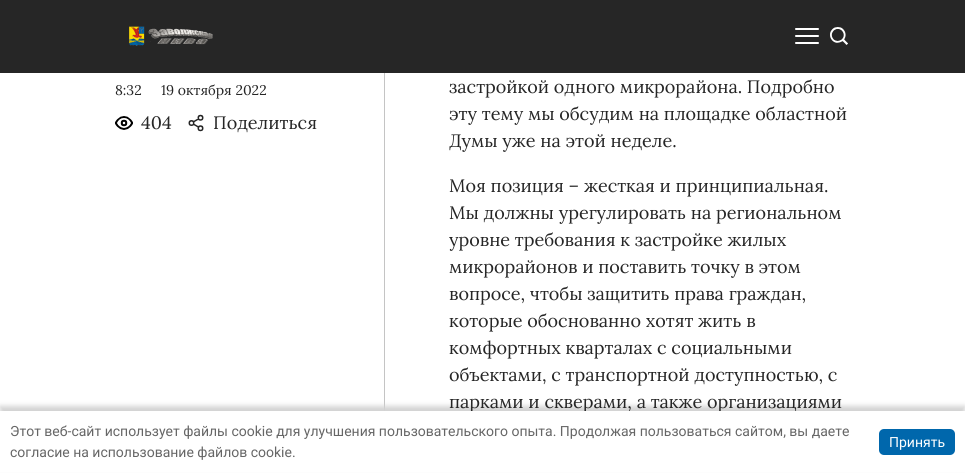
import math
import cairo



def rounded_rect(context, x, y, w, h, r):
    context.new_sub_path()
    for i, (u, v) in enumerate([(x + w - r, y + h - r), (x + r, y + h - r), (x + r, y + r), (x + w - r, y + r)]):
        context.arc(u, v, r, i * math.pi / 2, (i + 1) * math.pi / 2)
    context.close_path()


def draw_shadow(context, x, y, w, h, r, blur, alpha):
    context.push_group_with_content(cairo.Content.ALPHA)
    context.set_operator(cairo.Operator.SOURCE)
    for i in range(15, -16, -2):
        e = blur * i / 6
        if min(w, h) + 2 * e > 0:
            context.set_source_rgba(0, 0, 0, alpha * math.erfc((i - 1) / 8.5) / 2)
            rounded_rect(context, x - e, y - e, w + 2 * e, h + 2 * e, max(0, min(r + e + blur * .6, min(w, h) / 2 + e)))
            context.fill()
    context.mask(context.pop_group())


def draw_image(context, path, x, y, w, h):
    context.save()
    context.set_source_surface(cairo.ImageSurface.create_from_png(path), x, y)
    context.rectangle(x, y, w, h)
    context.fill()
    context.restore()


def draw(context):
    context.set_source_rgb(1, 1, 1)
    context.paint()
    context.set_source_rgb(38 / 255, 38 / 255, 38 / 255)
    context.rectangle(0, 0, 965, 73)
    context.fill()
    draw_image(context, "images/1.png", 129, 26, 84, 20)
    context.set_source_rgb(1, 1, 1)
    rounded_rect(context, 795, 28, 24, 2, 1)
    context.fill()
    rounded_rect(context, 795, 35, 24, 2, 1)
    context.fill()
    rounded_rect(context, 795, 42, 24, 2, 1)
    context.fill()
    draw_image(context, "images/2.png", 830, 27, 18, 18)
    context.set_source_rgb(196 / 255, 196 / 255, 196 / 255)
    context.rectangle(384, 73, 1, 338)
    context.fill()
    draw_image(context, "images/3.png", 115, 116, 18, 14)
    draw_image(context, "images/4.png", 188, 114, 16, 18)
    context.set_source_rgb(210 / 255, 210 / 255, 210 / 255)
    draw_shadow(context, 0, 406, 965, 62, 0, 2.5, 1)
    context.select_font_face("Lora")
    context.set_font_size(14)
    context.set_source_rgb(38 / 255, 38 / 255, 38 / 255)
    context.move_to(115, 95)
    context.show_text("8:32")
    context.move_to(161, 95)
    context.show_text("19 октября 2022")
    context.set_font_size(18)
    context.move_to(141, 129)
    context.show_text("404")
    context.move_to(213, 129)
    context.show_text("Поделиться")
    context.move_to(449, 93)
    context.show_text("застройкой одного микрорайона. Подробно")
    context.move_to(449, 120)
    context.show_text("эту тему мы обсудим на площадке областной")
    context.move_to(449, 147)
    context.show_text("Думы уже на этой неделе.")
    context.move_to(449, 192)
    context.show_text("Моя позиция – жесткая и принципиальная.")
    context.move_to(449, 219)
    context.show_text("Мы должны урегулировать на региональном")
    context.move_to(449, 246)
    context.show_text("уровне требования к застройке жилых")
    context.move_to(449, 273)
    context.show_text("микрорайонов и поставить точку в этом")
    context.move_to(449, 300)
    context.show_text("вопросе, чтобы защитить права граждан,")
    context.move_to(449, 327)
    context.show_text("которые обоснованно хотят жить в")
    context.move_to(449, 354)
    context.show_text("комфортных кварталах с социальными")
    context.move_to(449, 381)
    context.show_text("объектами, с транспортной доступностью, с")
    context.move_to(449, 408)
    context.show_text("парками и скверами, а также организациями")
    context.set_source_rgb(1, 1, 1)
    context.rectangle(0, 411, 965, 61)
    context.fill()
    context.select_font_face("Roboto")
    context.set_font_size(14)
    context.set_source_rgb(102 / 255, 102 / 255, 102 / 255)
    context.move_to(10, 436)
    context.show_text("Этот веб-сайт использует файлы cookie для улучшения пользовательского опыта. Продолжая пользоваться сайтом, вы даете")
    context.move_to(10, 457)
    context.show_text("согласие на использование файлов cookie.")
    context.set_source_rgb(0, 103 / 255, 172 / 255)
    rounded_rect(context, 879, 429, 76, 26, 5)
    context.fill()
    context.set_source_rgb(1, 1, 1)
    context.move_to(889, 447)
    context.show_text("Принять")


surface = cairo.ImageSurface(cairo.Format.RGB24, 965, 473)
context = cairo.Context(surface)
options = cairo.FontOptions()
options.set_hint_metrics(cairo.HintMetrics.OFF)
options.set_hint_style(cairo.HintStyle.NONE)
context.set_font_options(options)
context.set_miter_limit(4)
draw(context)
surface.write_to_png("out.png")
